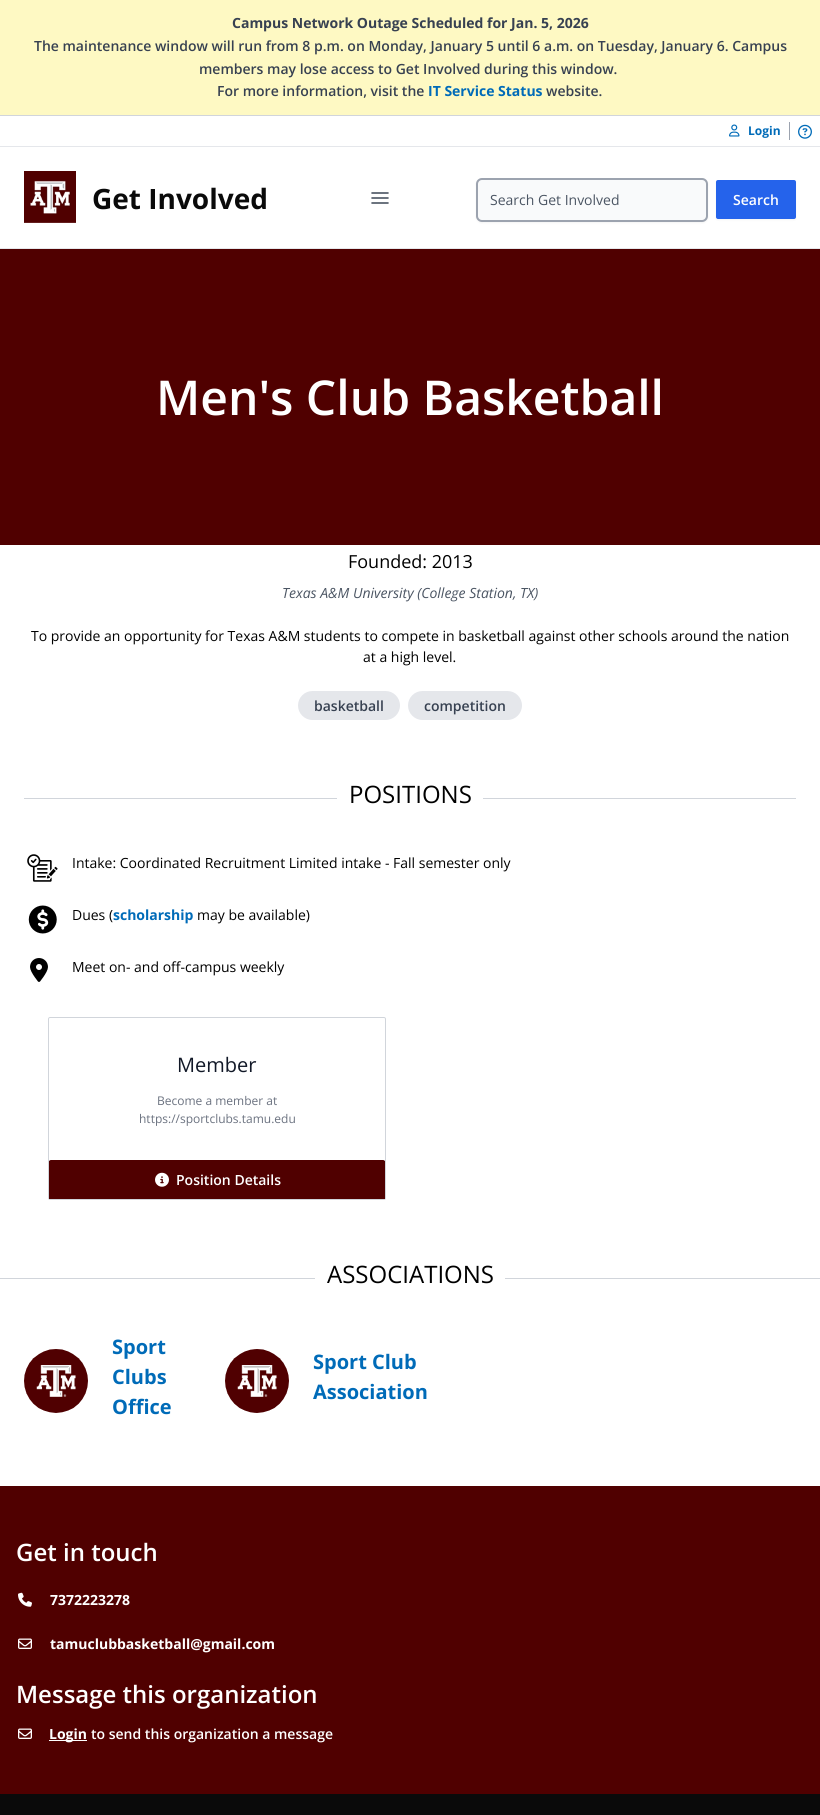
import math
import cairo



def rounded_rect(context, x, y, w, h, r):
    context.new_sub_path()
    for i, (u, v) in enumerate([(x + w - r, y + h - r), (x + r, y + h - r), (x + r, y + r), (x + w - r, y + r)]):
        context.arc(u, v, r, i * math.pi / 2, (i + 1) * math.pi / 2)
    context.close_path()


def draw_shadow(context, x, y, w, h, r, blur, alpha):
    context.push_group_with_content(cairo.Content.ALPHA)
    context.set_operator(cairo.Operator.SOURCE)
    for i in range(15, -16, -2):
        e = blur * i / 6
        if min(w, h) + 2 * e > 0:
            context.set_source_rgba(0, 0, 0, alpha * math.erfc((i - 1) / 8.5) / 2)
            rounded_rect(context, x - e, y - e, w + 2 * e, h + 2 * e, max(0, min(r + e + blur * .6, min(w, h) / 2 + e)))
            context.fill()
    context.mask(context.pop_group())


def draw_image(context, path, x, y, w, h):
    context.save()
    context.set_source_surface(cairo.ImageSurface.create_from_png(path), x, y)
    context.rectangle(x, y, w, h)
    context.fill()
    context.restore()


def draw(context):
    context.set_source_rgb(1, 1, 1)
    context.paint()
    context.set_source_rgb(254 / 255, 249 / 255, 195 / 255)
    context.rectangle(0, 0, 820, 115)
    context.fill()
    context.set_source_rgb(209 / 255, 213 / 255, 219 / 255)
    context.rectangle(0, 115, 820, 1)
    context.fill()
    context.set_source_rgb(229 / 255, 231 / 255, 235 / 255)
    context.rectangle(0, 146, 820, 1)
    context.fill()
    draw_image(context, "images/1.png", 729, 124, 11, 13)
    context.set_source_rgb(156 / 255, 163 / 255, 175 / 255)
    context.rectangle(789, 122, 1, 18)
    context.fill()
    draw_image(context, "images/2.png", 798, 124, 14, 15)
    context.set_source_rgb(229 / 255, 231 / 255, 235 / 255)
    context.rectangle(0, 248, 820, 1)
    context.fill()
    draw_image(context, "images/3.png", 24, 171, 52, 52)
    context.new_path()
    context.move_to(372, 193)
    context.line_to(388, 193)
    context.move_to(372, 198)
    context.line_to(388, 198)
    context.move_to(372, 203)
    context.line_to(388, 203)
    context.set_source_rgb(55 / 255, 65 / 255, 81 / 255)
    context.set_line_width(1.5)
    context.set_line_cap(cairo.LineCap.ROUND)
    context.set_line_join(cairo.LineJoin.ROUND)
    context.stroke()
    context.set_source_rgb(0, 0, 0)
    draw_shadow(context, 476, 179, 232, 44, 6, 1, 0.05)
    context.set_source_rgb(249 / 255, 250 / 255, 251 / 255)
    rounded_rect(context, 477, 179, 230, 42, 5)
    context.fill_preserve()
    context.set_source_rgb(156 / 255, 163 / 255, 175 / 255)
    context.set_line_width(2)
    context.set_line_cap(cairo.LineCap.BUTT)
    context.set_line_join(cairo.LineJoin.MITER)
    context.stroke()
    context.set_source_rgb(0, 0, 0)
    draw_shadow(context, 716, 181, 80, 39, 2, 1, 0.05)
    context.set_source_rgb(37 / 255, 99 / 255, 235 / 255)
    rounded_rect(context, 716, 180, 80, 39, 2)
    context.fill()
    context.set_source_rgb(80 / 255, 0, 0)
    context.rectangle(0, 249, 820, 296)
    context.fill()
    context.set_source_rgb(229 / 255, 231 / 255, 235 / 255)
    rounded_rect(context, 298, 691, 102, 29, 14.5)
    context.fill()
    rounded_rect(context, 408, 691, 114, 29, 14.5)
    context.fill()
    context.set_source_rgb(209 / 255, 213 / 255, 219 / 255)
    context.rectangle(24, 798, 772, 1)
    context.fill()
    context.set_source_rgb(1, 1, 1)
    context.rectangle(337, 798, 146, 1)
    context.fill()
    draw_image(context, "images/4.png", 27, 854, 31, 28)
    draw_image(context, "images/5.png", 28, 905, 29, 29)
    draw_image(context, "images/6.png", 30, 958, 18, 24)
    rounded_rect(context, 48.5, 1017.5, 337, 182, 1.5)
    context.set_source_rgb(209 / 255, 213 / 255, 219 / 255)
    context.set_line_width(1)
    context.stroke()
    context.set_source_rgb(80 / 255, 0, 0)
    context.rectangle(49, 1161, 336, 38)
    context.fill()
    context.set_source_rgb(229 / 255, 231 / 255, 235 / 255)
    context.rectangle(49, 1160, 336, 1)
    context.fill()
    context.set_source_rgb(80 / 255, 0, 0)
    rounded_rect(context, 49, 1160, 336, 39, 2)
    context.fill()
    draw_image(context, "images/7.png", 155, 1172, 14, 15)
    context.set_source_rgb(209 / 255, 213 / 255, 219 / 255)
    context.rectangle(0, 1278, 820, 1)
    context.fill()
    context.set_source_rgb(1, 1, 1)
    context.rectangle(315, 1278, 190, 1)
    context.fill()
    draw_image(context, "images/8.png", 24, 1349, 64, 64)
    draw_image(context, "images/9.png", 225, 1349, 64, 64)
    context.set_source_rgb(80 / 255, 0, 0)
    context.rectangle(0, 1486, 820, 308)
    context.fill()
    draw_image(context, "images/10.png", 18, 1592, 14, 15)
    draw_image(context, "images/11.png", 18, 1638, 14, 11)
    draw_image(context, "images/11.png", 18, 1728, 14, 11)
    context.set_source_rgb(1, 1, 1)
    context.rectangle(49, 1740, 38, 1)
    context.fill()
    context.set_source_rgb(10 / 255, 10 / 255, 10 / 255)
    context.rectangle(0, 1794, 820, 21)
    context.fill()
    context.select_font_face("Open Sans", cairo.FontSlant.NORMAL, cairo.FontWeight.BOLD)
    context.set_font_size(14)
    context.set_source_rgb(55 / 255, 65 / 255, 81 / 255)
    context.move_to(232, 28)
    context.show_text("Campus Network Outage Scheduled for Jan. 5, 2026")
    context.select_font_face("Open Sans SemiBold")
    context.move_to(34, 51)
    context.show_text("The maintenance window will run from 8 p.m. on Monday, January 5 until 6 a.m. on Tuesday, January 6. Campus")
    context.move_to(199, 74)
    context.show_text("members may lose access to Get Involved during this window.")
    context.move_to(217, 96)
    context.show_text("For more information, visit the")
    context.select_font_face("Open Sans", cairo.FontSlant.NORMAL, cairo.FontWeight.BOLD)
    context.set_source_rgb(0, 107 / 255, 184 / 255)
    context.move_to(428, 96)
    context.show_text("IT Service Status")
    context.select_font_face("Open Sans SemiBold")
    context.set_source_rgb(55 / 255, 65 / 255, 81 / 255)
    context.move_to(546, 96)
    context.show_text("website.")
    context.select_font_face("Open Sans", cairo.FontSlant.NORMAL, cairo.FontWeight.BOLD)
    context.set_font_size(12)
    context.set_source_rgb(0, 107 / 255, 184 / 255)
    context.move_to(748, 135)
    context.show_text("Login")
    context.set_font_size(28)
    context.set_source_rgb(10 / 255, 10 / 255, 10 / 255)
    context.move_to(92, 209)
    context.show_text("Get Involved")
    context.select_font_face("Open Sans")
    context.set_font_size(14)
    context.set_source_rgb(75 / 255, 85 / 255, 99 / 255)
    context.move_to(490, 205)
    context.show_text("Search Get Involved")
    context.select_font_face("Open Sans SemiBold")
    context.set_source_rgb(1, 1, 1)
    context.move_to(733, 205)
    context.show_text("Search")
    context.set_font_size(48)
    context.move_to(156, 415)
    context.show_text("Men's Club Basketball")
    context.select_font_face("Open Sans")
    context.set_font_size(18)
    context.set_source_rgb(0, 0, 0)
    context.move_to(348, 568)
    context.show_text("Founded: 2013")
    context.select_font_face("Open Sans", cairo.FontSlant.ITALIC)
    context.set_font_size(14)
    context.set_source_rgb(75 / 255, 85 / 255, 99 / 255)
    context.move_to(282, 598)
    context.show_text("Texas A&M University (College Station, TX)")
    context.select_font_face("Open Sans")
    context.set_source_rgb(0, 0, 0)
    context.move_to(31, 641)
    context.show_text("To provide an opportunity for Texas A&M students to compete in basketball against other schools around the nation")
    context.move_to(363, 662)
    context.show_text("at a high level.")
    context.select_font_face("Open Sans SemiBold")
    context.set_source_rgb(55 / 255, 65 / 255, 81 / 255)
    context.move_to(314, 711)
    context.show_text("basketball")
    context.move_to(424, 711)
    context.show_text("competition")
    context.select_font_face("Open Sans")
    context.set_font_size(24)
    context.set_source_rgb(0, 0, 0)
    context.move_to(349, 803)
    context.show_text("POSITIONS")
    context.set_font_size(14)
    context.move_to(72, 868)
    context.show_text("Intake: Coordinated Recruitment Limited intake - Fall semester only")
    context.move_to(72, 920)
    context.show_text("Dues (")
    context.select_font_face("Open Sans", cairo.FontSlant.NORMAL, cairo.FontWeight.BOLD)
    context.set_source_rgb(0, 107 / 255, 184 / 255)
    context.move_to(113, 920)
    context.show_text("scholarship")
    context.select_font_face("Open Sans")
    context.set_source_rgb(0, 0, 0)
    context.move_to(197, 920)
    context.show_text("may be available)")
    context.move_to(72, 972)
    context.show_text("Meet on- and off-campus weekly")
    context.set_font_size(20)
    context.set_source_rgb(17 / 255, 24 / 255, 39 / 255)
    context.move_to(177, 1072)
    context.show_text("Member")
    context.set_font_size(12)
    context.set_source_rgb(107 / 255, 114 / 255, 128 / 255)
    context.move_to(157, 1105)
    context.show_text("Become a member at")
    context.move_to(139, 1123)
    context.show_text("https://sportclubs.tamu.edu")
    context.select_font_face("Open Sans SemiBold")
    context.set_font_size(14)
    context.set_source_rgb(1, 1, 1)
    context.move_to(176, 1185)
    context.show_text("Position Details")
    context.select_font_face("Open Sans")
    context.set_font_size(24)
    context.set_source_rgb(0, 0, 0)
    context.move_to(327, 1283)
    context.show_text("ASSOCIATIONS")
    context.select_font_face("Open Sans", cairo.FontSlant.NORMAL, cairo.FontWeight.BOLD)
    context.set_font_size(20)
    context.set_source_rgb(0, 107 / 255, 184 / 255)
    context.move_to(112, 1354)
    context.show_text("Sport")
    context.move_to(112, 1384)
    context.show_text("Clubs")
    context.move_to(112, 1414)
    context.show_text("Office")
    context.move_to(313, 1369)
    context.show_text("Sport Club")
    context.move_to(313, 1399)
    context.show_text("Association")
    context.select_font_face("Open Sans SemiBold")
    context.set_font_size(24)
    context.set_source_rgb(1, 1, 1)
    context.move_to(16, 1561)
    context.show_text("Get in touch")
    context.select_font_face("Open Sans", cairo.FontSlant.NORMAL, cairo.FontWeight.BOLD)
    context.set_font_size(14)
    context.move_to(50, 1605)
    context.show_text("7372223278")
    context.move_to(50, 1649)
    context.show_text("tamuclubbasketball@gmail.com")
    context.select_font_face("Open Sans SemiBold")
    context.set_font_size(24)
    context.move_to(16, 1703)
    context.show_text("Message this organization")
    context.select_font_face("Open Sans", cairo.FontSlant.NORMAL, cairo.FontWeight.BOLD)
    context.set_font_size(14)
    context.move_to(49, 1739)
    context.show_text("Login")
    context.select_font_face("Open Sans SemiBold")
    context.move_to(91, 1739)
    context.show_text("to send this organization a message")


surface = cairo.ImageSurface(cairo.Format.RGB24, 820, 1815)
context = cairo.Context(surface)
options = cairo.FontOptions()
options.set_hint_metrics(cairo.HintMetrics.OFF)
options.set_hint_style(cairo.HintStyle.NONE)
context.set_font_options(options)
context.set_miter_limit(4)
draw(context)
surface.write_to_png("out.png")
